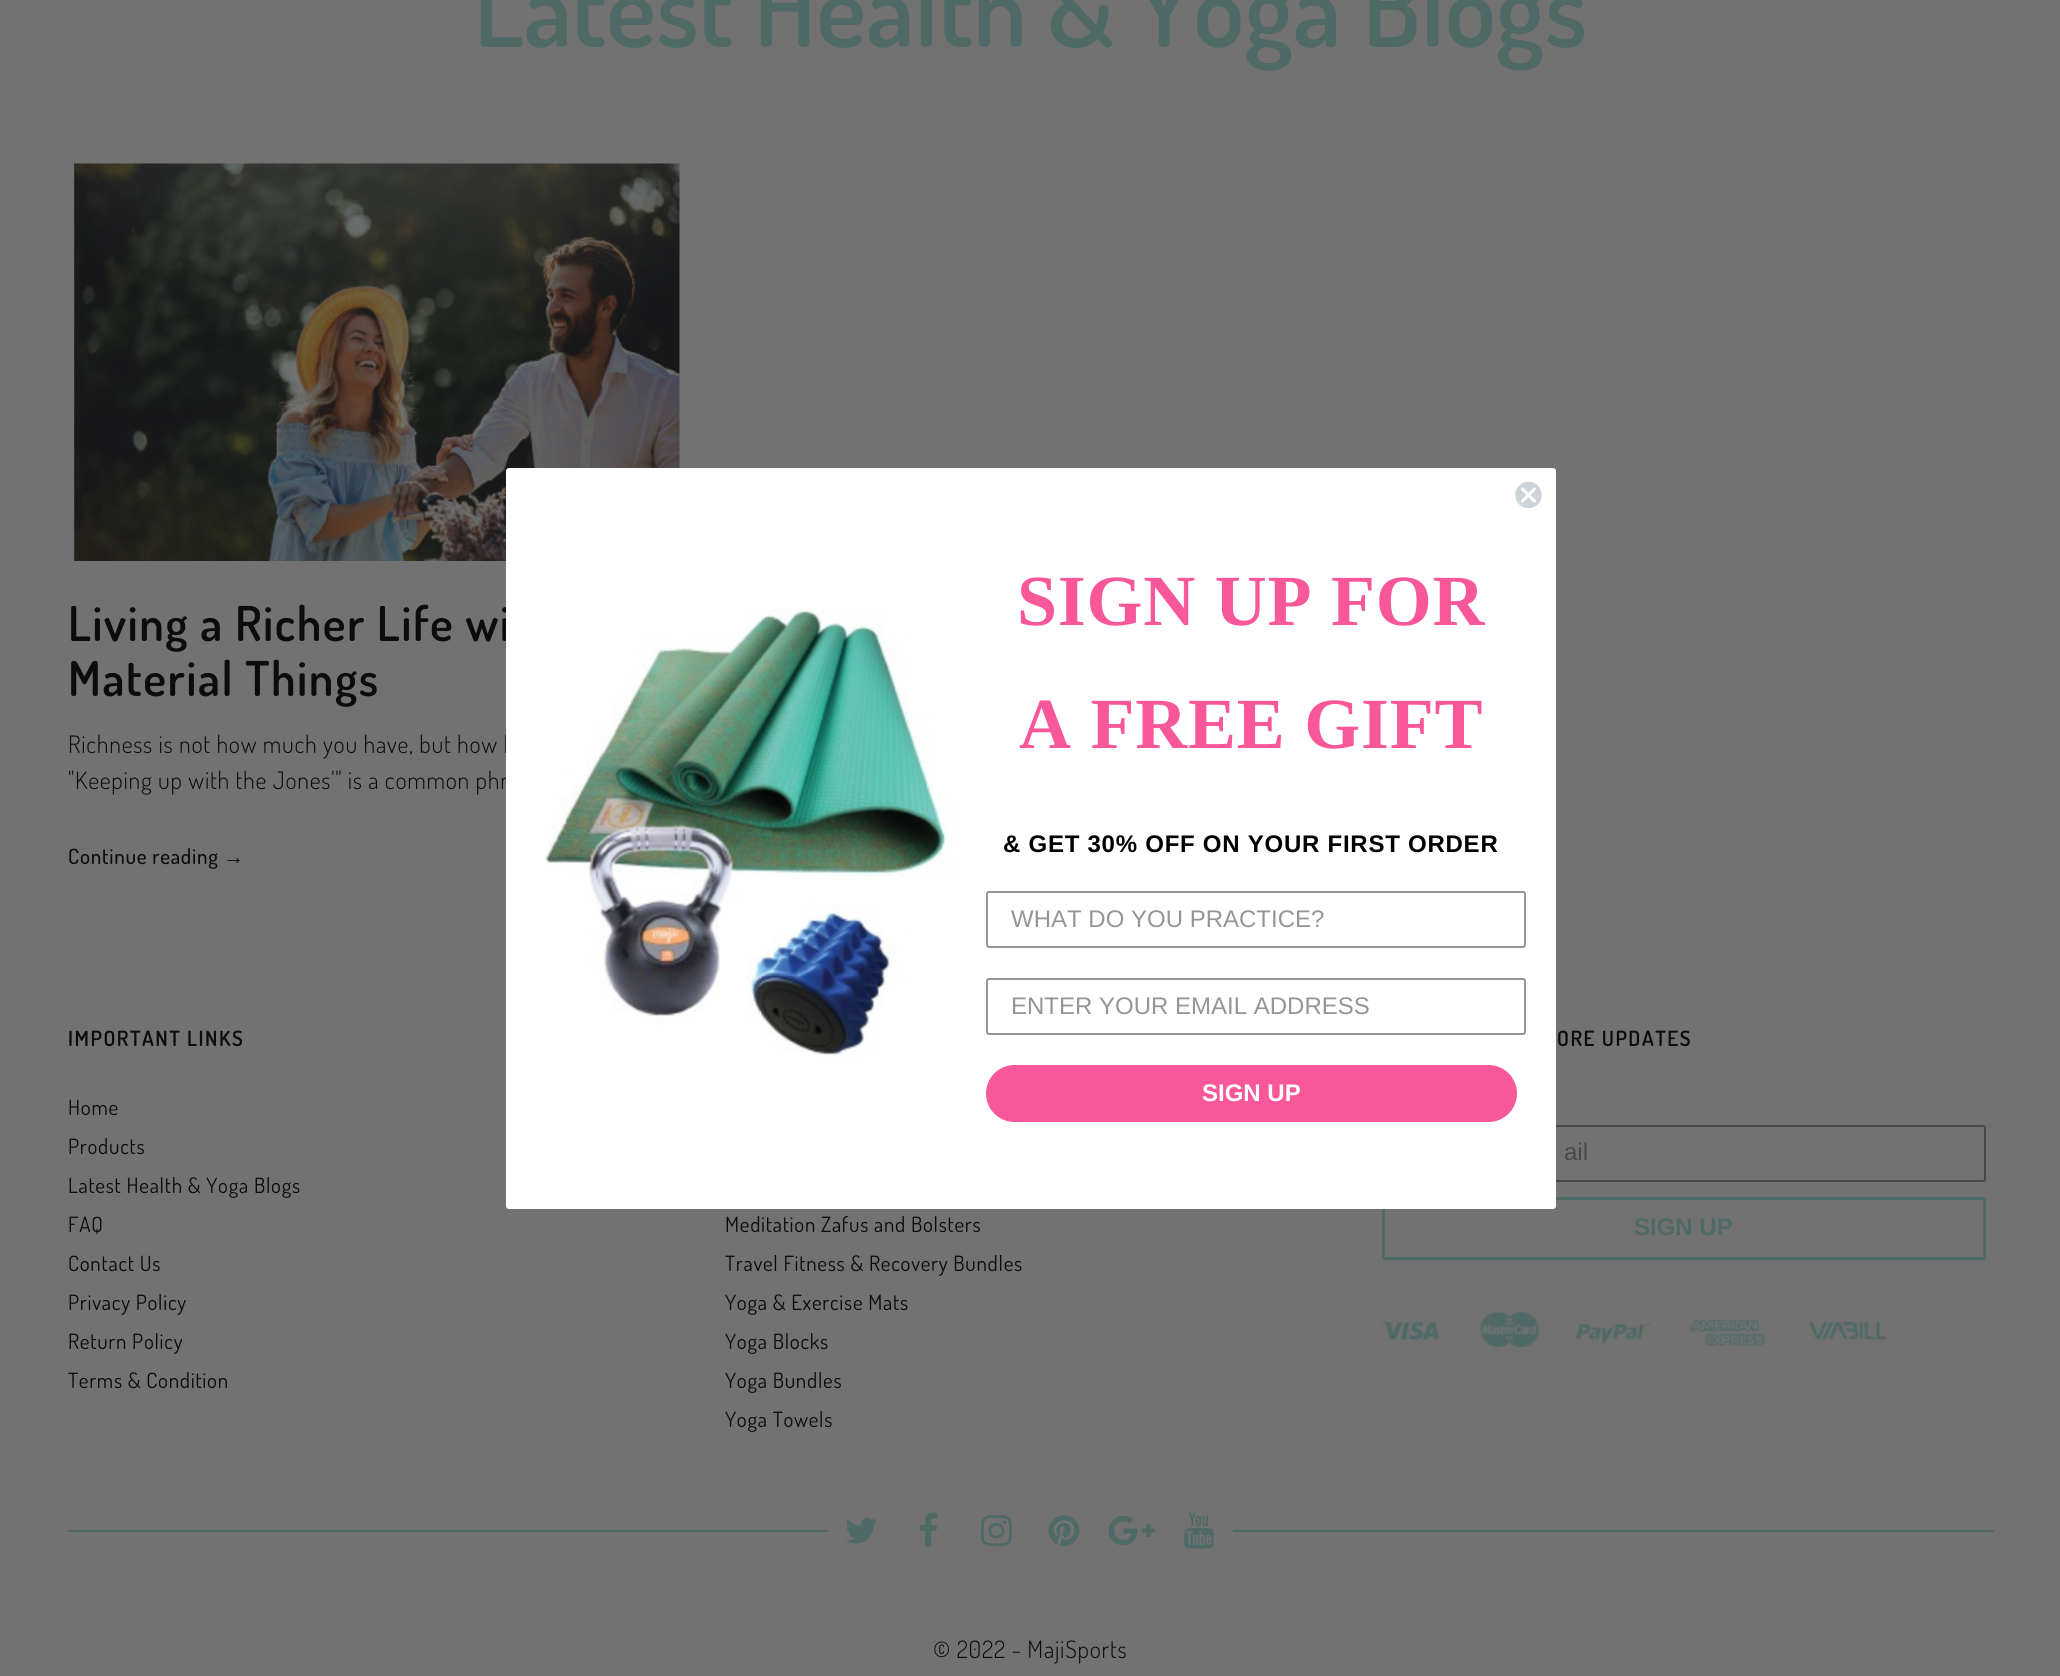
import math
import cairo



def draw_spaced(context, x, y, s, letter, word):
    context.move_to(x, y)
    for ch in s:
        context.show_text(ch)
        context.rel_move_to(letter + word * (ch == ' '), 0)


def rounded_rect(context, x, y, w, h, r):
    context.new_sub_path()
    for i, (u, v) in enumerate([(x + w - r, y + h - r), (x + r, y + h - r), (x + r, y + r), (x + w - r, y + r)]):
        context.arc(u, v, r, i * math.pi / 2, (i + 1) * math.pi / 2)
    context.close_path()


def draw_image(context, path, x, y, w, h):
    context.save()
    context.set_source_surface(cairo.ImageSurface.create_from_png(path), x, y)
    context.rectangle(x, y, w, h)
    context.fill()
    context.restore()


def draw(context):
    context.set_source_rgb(114 / 255, 114 / 255, 114 / 255)
    context.paint()
    draw_image(context, "images/1.png", 68, 163, 612, 398)
    rounded_rect(context, 1383, 1126, 602, 55, 2)
    context.set_source_rgb(71 / 255, 72 / 255, 72 / 255)
    context.stroke()
    rounded_rect(context, 1383.5, 1198.5, 601, 60, 1.5)
    context.set_source_rgb(79 / 255, 105 / 255, 102 / 255)
    context.set_line_width(3)
    context.stroke()
    draw_image(context, "images/2.png", 1381, 1311, 507, 37)
    context.rectangle(68, 1530, 1926, 2)
    context.fill()
    context.set_source_rgb(114 / 255, 114 / 255, 114 / 255)
    context.rectangle(828, 1530, 405, 2)
    context.fill()
    draw_image(context, "images/3.png", 845, 1517, 32, 27)
    draw_image(context, "images/4.png", 919, 1512, 19, 35)
    draw_image(context, "images/5.png", 981, 1515, 31, 32)
    draw_image(context, "images/6.png", 1048, 1515, 32, 31)
    draw_image(context, "images/7.png", 1108, 1515, 47, 31)
    draw_image(context, "images/8.png", 1184, 1512, 30, 37)
    context.select_font_face("Dosis SemiBold")
    context.set_font_size(105)
    context.set_source_rgb(79 / 255, 105 / 255, 102 / 255)
    context.move_to(474, 47)
    context.show_text("Latest Health & Yoga Blogs")
    context.set_font_size(48)
    context.set_source_rgb(12 / 255, 12 / 255, 12 / 255)
    draw_spaced(context, 68, 641, "Living a Richer Life wi", 1.5, 0)
    draw_spaced(context, 68, 696, "Material Things", 1.5, 0)
    context.select_font_face("Dosis Light")
    context.set_font_size(24)
    draw_spaced(context, 68, 753, "Richness is not how much you have, but how l", 0.75, 0)
    draw_spaced(context, 68, 789, "\"Keeping up with the Jones'\" is a common phr", 0.75, 0)
    context.select_font_face("Dosis Medium")
    context.set_font_size(21)
    draw_spaced(context, 68, 864, "Continue reading", 0.75, 0)
    context.select_font_face("Liberation Sans")
    draw_spaced(context, 223, 864, "→", 0.75, 0)
    context.select_font_face("Dosis SemiBold")
    draw_spaced(context, 68, 1046, "IMPORTANT LINKS", 1.5, 0)
    context.select_font_face("Dosis")
    draw_spaced(context, 68, 1115, "Home", 0.75, 0)
    draw_spaced(context, 68, 1154, "Products", 0.75, 0)
    draw_spaced(context, 68, 1193, "Latest Health & Yoga Blogs", 0.75, 0)
    draw_spaced(context, 68, 1232, "FAQ", 0.75, 0)
    draw_spaced(context, 68, 1271, "Contact Us", 0.75, 0)
    draw_spaced(context, 68, 1310, "Privacy Policy", 0.75, 0)
    draw_spaced(context, 68, 1349, "Return Policy", 0.75, 0)
    draw_spaced(context, 68, 1388, "Terms & Condition", 0.75, 0)
    context.select_font_face("Dosis SemiBold")
    draw_spaced(context, 1557, 1046, "ORE UPDATES", 1.5, 0)
    context.select_font_face("Liberation Sans")
    context.set_font_size(24)
    context.set_source_rgb(71 / 255, 72 / 255, 72 / 255)
    context.move_to(1564, 1160)
    context.show_text("ail")
    context.select_font_face("Liberation Sans", cairo.FontSlant.NORMAL, cairo.FontWeight.BOLD)
    context.set_source_rgb(79 / 255, 105 / 255, 102 / 255)
    context.move_to(1634, 1235)
    context.show_text("SIGN UP")
    context.select_font_face("Dosis")
    context.set_font_size(21)
    context.set_source_rgb(12 / 255, 12 / 255, 12 / 255)
    draw_spaced(context, 725, 1232, "Meditation Zafus and Bolsters", 0.75, 0)
    draw_spaced(context, 725, 1271, "Travel Fitness & Recovery Bundles", 0.75, 0)
    draw_spaced(context, 725, 1310, "Yoga & Exercise Mats", 0.75, 0)
    draw_spaced(context, 725, 1349, "Yoga Blocks", 0.75, 0)
    draw_spaced(context, 725, 1388, "Yoga Bundles", 0.75, 0)
    draw_spaced(context, 725, 1427, "Yoga Towels", 0.75, 0)
    context.select_font_face("Dosis Light")
    context.set_font_size(24)
    draw_spaced(context, 933, 1658, "© 2022 - MajiSports", 0.75, 0)
    context.set_source_rgb(1, 1, 1)
    rounded_rect(context, 506, 468, 1050, 741, 3)
    context.fill()
    context.set_source_rgb(206 / 255, 211 / 255, 216 / 255)
    context.arc(1528.5, 495, 14, 0, 2 * math.pi)
    context.fill()
    context.save()
    context.rectangle(1514, 480, 30, 30)
    context.clip()
    context.arc(1528.5, 495, 14, 0, 2 * math.pi)
    context.set_source_rgb(1, 1, 1)
    context.set_line_width(1.5)
    context.stroke()
    context.restore()
    context.new_path()
    context.move_to(1522.5, 489)
    context.line_to(1534.5, 501)
    context.move_to(1522.5, 501)
    context.line_to(1534.5, 489)
    context.close_path()
    context.set_source_rgb(1, 1, 1)
    context.set_line_cap(cairo.LineCap.ROUND)
    context.set_line_join(cairo.LineJoin.ROUND)
    context.stroke()
    draw_image(context, "images/9.png", 545, 608, 410, 457)
    context.select_font_face("Liberation Serif", cairo.FontSlant.NORMAL, cairo.FontWeight.BOLD)
    context.set_font_size(72)
    context.set_source_rgb(248 / 255, 87 / 255, 154 / 255)
    draw_spaced(context, 1017, 625, "SIGN UP FOR", 0.75, 0)
    draw_spaced(context, 1019, 748, "A FREE GIFT", 0.75, 0)
    context.select_font_face("Liberation Sans", cairo.FontSlant.NORMAL, cairo.FontWeight.BOLD)
    context.set_font_size(24)
    context.set_source_rgb(0, 0, 0)
    draw_spaced(context, 1003, 852, "& GET 30% OFF ON YOUR FIRST ORDER", 0.75, 0)
    rounded_rect(context, 987, 892, 538, 55, 2)
    context.set_source_rgb(148 / 255, 149 / 255, 150 / 255)
    context.set_line_width(2)
    context.set_line_cap(cairo.LineCap.BUTT)
    context.set_line_join(cairo.LineJoin.MITER)
    context.stroke()
    context.select_font_face("Liberation Sans")
    context.move_to(1011, 927)
    context.show_text("WHAT DO YOU PRACTICE?")
    rounded_rect(context, 987, 979, 538, 55, 2)
    context.stroke()
    context.move_to(1011, 1014)
    context.show_text("ENTER YOUR EMAIL ADDRESS")
    context.set_source_rgb(248 / 255, 87 / 255, 154 / 255)
    rounded_rect(context, 986, 1065, 531, 57, 28.5)
    context.fill()
    context.select_font_face("Liberation Sans", cairo.FontSlant.NORMAL, cairo.FontWeight.BOLD)
    context.set_source_rgb(1, 1, 1)
    context.move_to(1202, 1101)
    context.show_text("SIGN UP")


surface = cairo.ImageSurface(cairo.Format.RGB24, 2060, 1676)
context = cairo.Context(surface)
options = cairo.FontOptions()
options.set_hint_metrics(cairo.HintMetrics.OFF)
options.set_hint_style(cairo.HintStyle.NONE)
context.set_font_options(options)
context.set_miter_limit(4)
draw(context)
surface.write_to_png("out.png")
